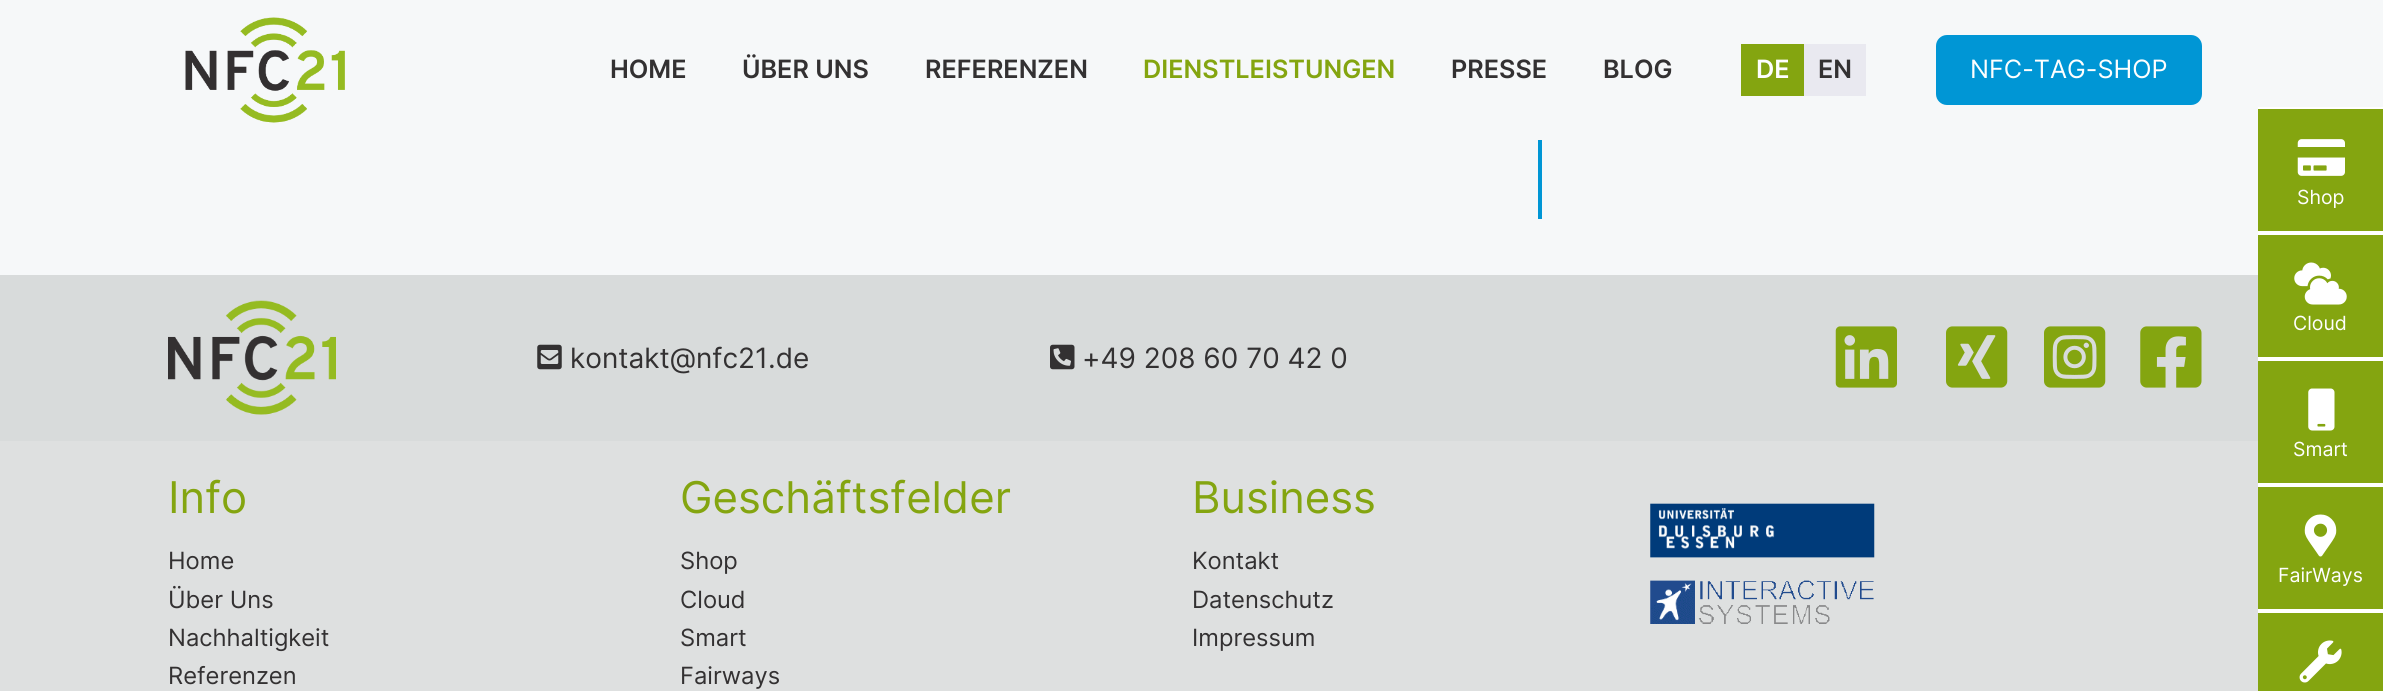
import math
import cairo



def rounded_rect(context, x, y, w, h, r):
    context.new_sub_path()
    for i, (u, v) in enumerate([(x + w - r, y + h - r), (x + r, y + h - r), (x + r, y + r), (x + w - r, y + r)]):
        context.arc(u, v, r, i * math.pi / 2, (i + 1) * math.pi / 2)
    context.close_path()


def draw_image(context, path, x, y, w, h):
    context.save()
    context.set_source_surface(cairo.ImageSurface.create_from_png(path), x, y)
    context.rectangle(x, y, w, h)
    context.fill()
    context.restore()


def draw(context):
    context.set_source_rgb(246 / 255, 248 / 255, 249 / 255)
    context.paint()
    draw_image(context, "images/1.png", 185, 17, 160, 106)
    context.set_source_rgb(132 / 255, 165 / 255, 16 / 255)
    context.rectangle(1741, 44, 63, 52)
    context.fill()
    context.set_source_rgb(233 / 255, 233 / 255, 240 / 255)
    context.rectangle(1804, 44, 62, 52)
    context.fill()
    context.set_source_rgb(0, 150 / 255, 213 / 255)
    rounded_rect(context, 1936, 35, 266, 70, 11)
    context.fill()
    context.rectangle(1538, 140, 4, 79)
    context.fill()
    context.set_source_rgb(222 / 255, 224 / 255, 224 / 255)
    context.rectangle(0, 441, 2258, 250)
    context.fill()
    context.set_source_rgb(216 / 255, 219 / 255, 219 / 255)
    context.rectangle(0, 275, 2258, 166)
    context.fill()
    draw_image(context, "images/2.png", 168, 300, 168, 115)
    draw_image(context, "images/3.png", 537, 344, 25, 26)
    draw_image(context, "images/4.png", 1050, 344, 25, 26)
    draw_image(context, "images/5.png", 1835, 326, 62, 62)
    draw_image(context, "images/6.png", 1946, 326, 62, 62)
    draw_image(context, "images/7.png", 2044, 326, 62, 62)
    draw_image(context, "images/8.png", 2140, 326, 62, 62)
    draw_image(context, "images/9.png", 1650, 503, 225, 121)
    context.set_source_rgb(132 / 255, 165 / 255, 16 / 255)
    context.rectangle(2258, 109, 125, 122)
    context.fill()
    context.set_source_rgb(1, 1, 1)
    context.rectangle(2258, 107, 125, 2)
    context.fill()
    context.rectangle(2258, 231, 125, 4)
    context.fill()
    draw_image(context, "images/10.png", 2297, 139, 48, 37)
    context.set_source_rgb(132 / 255, 165 / 255, 16 / 255)
    context.rectangle(2258, 235, 125, 122)
    context.fill()
    context.set_source_rgb(1, 1, 1)
    context.rectangle(2258, 357, 125, 4)
    context.fill()
    draw_image(context, "images/11.png", 2294, 262, 53, 43)
    context.set_source_rgb(132 / 255, 165 / 255, 16 / 255)
    context.rectangle(2258, 361, 125, 122)
    context.fill()
    context.set_source_rgb(1, 1, 1)
    context.rectangle(2258, 483, 125, 4)
    context.fill()
    draw_image(context, "images/12.png", 2308, 388, 27, 43)
    context.set_source_rgb(132 / 255, 165 / 255, 16 / 255)
    context.rectangle(2258, 487, 125, 122)
    context.fill()
    context.set_source_rgb(1, 1, 1)
    context.rectangle(2258, 609, 125, 4)
    context.fill()
    draw_image(context, "images/13.png", 2304, 514, 33, 43)
    context.set_source_rgb(132 / 255, 165 / 255, 16 / 255)
    context.rectangle(2258, 613, 125, 78)
    context.fill()
    draw_image(context, "images/14.png", 2299, 640, 43, 43)
    context.select_font_face("Inter SemiBold")
    context.set_font_size(25.25)
    context.set_source_rgb(51 / 255, 49 / 255, 50 / 255)
    context.move_to(610, 78)
    context.show_text("HOME")
    context.move_to(742, 78)
    context.show_text("ÜBER UNS")
    context.move_to(925, 78)
    context.show_text("REFERENZEN")
    context.set_source_rgb(132 / 255, 165 / 255, 16 / 255)
    context.move_to(1143, 78)
    context.show_text("DIENSTLEISTUNGEN")
    context.set_source_rgb(51 / 255, 49 / 255, 50 / 255)
    context.move_to(1451, 78)
    context.show_text("PRESSE")
    context.move_to(1603, 78)
    context.show_text("BLOG")
    context.set_source_rgb(254 / 255, 254 / 255, 254 / 255)
    context.move_to(1756, 78)
    context.show_text("DE")
    context.set_source_rgb(51 / 255, 49 / 255, 50 / 255)
    context.move_to(1818, 78)
    context.show_text("EN")
    context.select_font_face("Inter")
    context.set_source_rgb(254 / 255, 254 / 255, 254 / 255)
    context.move_to(1970, 78)
    context.show_text("NFC-TAG-SHOP")
    context.set_font_size(28)
    context.set_source_rgb(51 / 255, 49 / 255, 50 / 255)
    context.move_to(570, 368)
    context.show_text("kontakt@nfc21.de")
    context.move_to(1082, 368)
    context.show_text("+49 208 60 70 42 0")
    context.set_font_size(43.75)
    context.set_source_rgb(132 / 255, 165 / 255, 16 / 255)
    context.move_to(168, 513)
    context.show_text("Info")
    context.set_font_size(23.75)
    context.set_source_rgb(51 / 255, 49 / 255, 50 / 255)
    context.move_to(168, 569)
    context.show_text("Home")
    context.move_to(168, 608)
    context.show_text("Über Uns")
    context.move_to(168, 646)
    context.show_text("Nachhaltigkeit")
    context.move_to(168, 684)
    context.show_text("Referenzen")
    context.set_font_size(43.75)
    context.set_source_rgb(132 / 255, 165 / 255, 16 / 255)
    context.move_to(680, 513)
    context.show_text("Geschäftsfelder")
    context.set_font_size(23.75)
    context.set_source_rgb(51 / 255, 49 / 255, 50 / 255)
    context.move_to(680, 569)
    context.show_text("Shop")
    context.move_to(680, 608)
    context.show_text("Cloud")
    context.move_to(680, 646)
    context.show_text("Smart")
    context.move_to(680, 684)
    context.show_text("Fairways")
    context.set_font_size(43.75)
    context.set_source_rgb(132 / 255, 165 / 255, 16 / 255)
    context.move_to(1192, 513)
    context.show_text("Business")
    context.set_font_size(23.75)
    context.set_source_rgb(51 / 255, 49 / 255, 50 / 255)
    context.move_to(1192, 569)
    context.show_text("Kontakt")
    context.move_to(1192, 608)
    context.show_text("Datenschutz")
    context.move_to(1192, 646)
    context.show_text("Impressum")
    context.set_font_size(19.5)
    context.set_source_rgb(254 / 255, 254 / 255, 254 / 255)
    context.move_to(2297, 204)
    context.show_text("Shop")
    context.move_to(2293, 330)
    context.show_text("Cloud")
    context.move_to(2293, 456)
    context.show_text("Smart")
    context.move_to(2278, 582)
    context.show_text("FairWays")


surface = cairo.ImageSurface(cairo.Format.RGB24, 2383, 691)
context = cairo.Context(surface)
options = cairo.FontOptions()
options.set_hint_metrics(cairo.HintMetrics.OFF)
options.set_hint_style(cairo.HintStyle.NONE)
context.set_font_options(options)
context.set_miter_limit(4)
draw(context)
surface.write_to_png("out.png")
